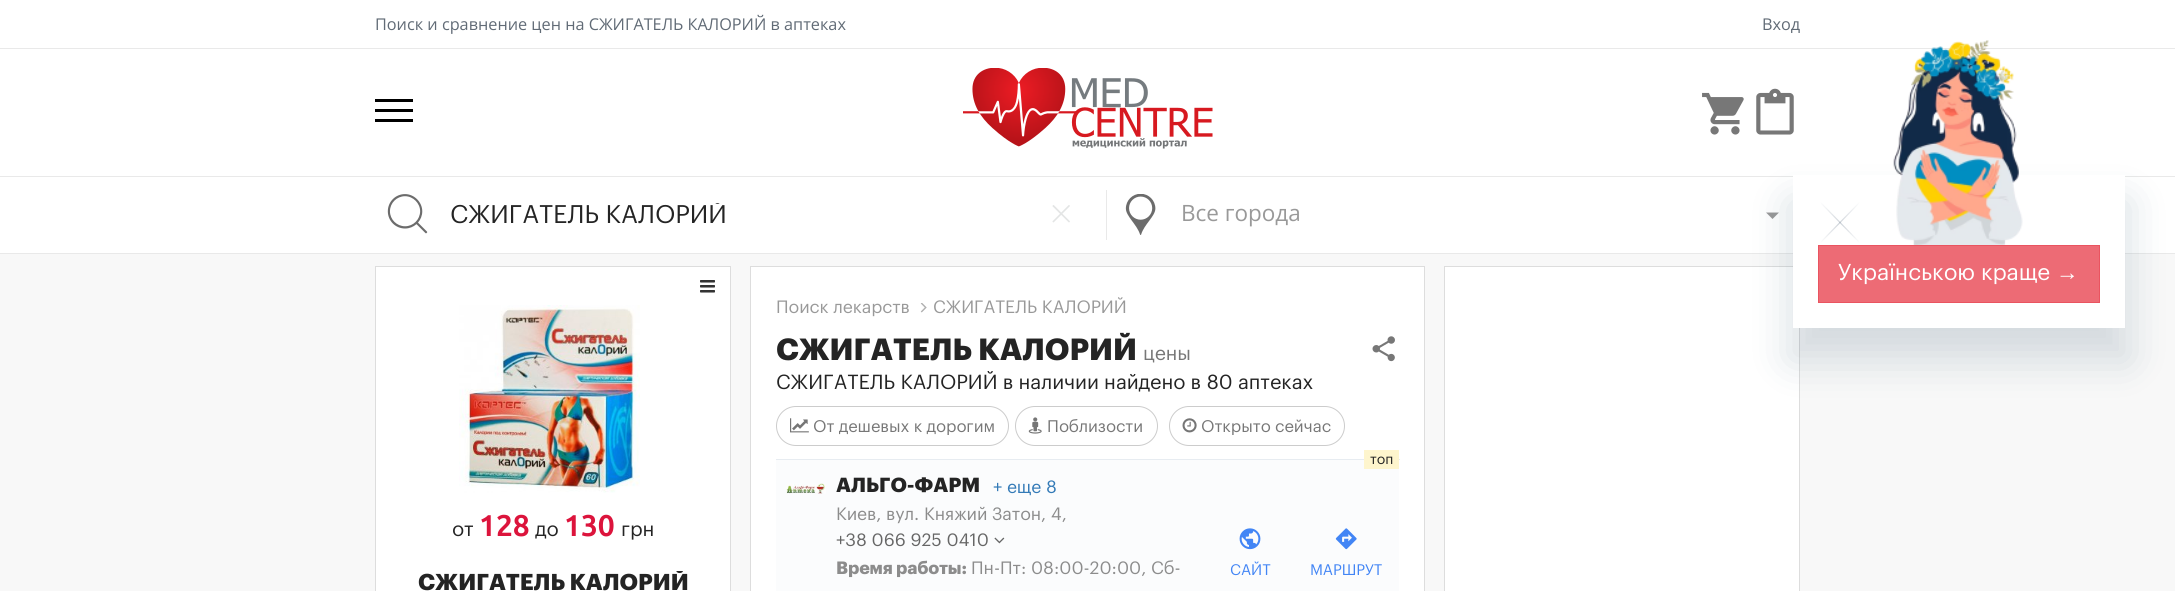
import math
import cairo



def rounded_rect(context, x, y, w, h, r):
    context.new_sub_path()
    for i, (u, v) in enumerate([(x + w - r, y + h - r), (x + r, y + h - r), (x + r, y + r), (x + w - r, y + r)]):
        context.arc(u, v, r, i * math.pi / 2, (i + 1) * math.pi / 2)
    context.close_path()


def draw_shadow(context, x, y, w, h, r, blur, alpha):
    context.push_group_with_content(cairo.Content.ALPHA)
    context.set_operator(cairo.Operator.SOURCE)
    for i in range(15, -16, -2):
        e = blur * i / 6
        if min(w, h) + 2 * e > 0:
            context.set_source_rgba(0, 0, 0, alpha * math.erfc((i - 1) / 8.5) / 2)
            rounded_rect(context, x - e, y - e, w + 2 * e, h + 2 * e, max(0, min(r + e + blur * .6, min(w, h) / 2 + e)))
            context.fill()
    context.mask(context.pop_group())


def draw_image(context, path, x, y, w, h):
    context.save()
    context.set_source_surface(cairo.ImageSurface.create_from_png(path), x, y)
    context.rectangle(x, y, w, h)
    context.fill()
    context.restore()


def draw(context):
    context.set_source_rgb(248 / 255, 248 / 255, 248 / 255)
    context.paint()
    context.set_source_rgb(1, 1, 1)
    context.rectangle(0, 0, 2175, 48)
    context.fill()
    context.rectangle(0, 49, 2175, 127)
    context.fill()
    context.set_source_rgb(233 / 255, 233 / 255, 233 / 255)
    context.rectangle(0, 48, 2175, 1)
    context.fill()
    context.set_source_rgb(0, 0, 0)
    context.rectangle(375, 99, 38, 3)
    context.fill()
    context.rectangle(375, 109, 38, 3)
    context.fill()
    context.rectangle(375, 119, 38, 3)
    context.fill()
    draw_image(context, "images/1.png", 963, 68, 250, 81)
    draw_image(context, "images/2.png", 1702, 92, 42, 43)
    draw_image(context, "images/3.png", 1756, 88, 38, 47)
    context.set_source_rgb(1, 1, 1)
    context.rectangle(0, 177, 2175, 76)
    context.fill()
    context.set_source_rgb(233 / 255, 233 / 255, 233 / 255)
    context.rectangle(0, 176, 2175, 1)
    context.fill()
    context.rectangle(0, 253, 2175, 1)
    context.fill()
    draw_image(context, "images/4.png", 387, 194, 41, 40)
    draw_image(context, "images/5.png", 1052, 205, 18, 18)
    context.rectangle(1106, 190, 1, 50)
    context.fill()
    draw_image(context, "images/6.png", 1125, 194, 31, 41)
    context.set_source_rgb(153 / 255, 153 / 255, 153 / 255)
    context.new_path()
    context.move_to(1766, 212.5)
    context.line_to(1779, 212.5)
    context.line_to(1772.5, 219)
    context.close_path()
    context.fill()
    context.set_source_rgb(1, 1, 1)
    context.rectangle(1444.5, 266.5, 355, 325)
    context.fill_preserve()
    context.set_source_rgb(221 / 255, 221 / 255, 221 / 255)
    context.set_line_width(1)
    context.stroke()
    context.set_source_rgb(6 / 255, 48 / 255, 78 / 255)
    draw_shadow(context, 1789, 201, 340, 160, 0, 20, 0.15)
    context.set_source_rgb(1, 1, 1)
    context.rectangle(1793, 175, 332, 153)
    context.fill()
    context.new_path()
    context.move_to(1861, 201)
    context.line_to(1819, 244)
    gradient = cairo.LinearGradient(1820, 201, 1860, 201)
    gradient.add_color_stop_rgba(0, 1, 1, 1, 1)
    gradient.add_color_stop_rgba(0.48, 207 / 255, 212 / 255, 218 / 255, 1)
    gradient.add_color_stop_rgba(1, 1, 1, 1, 1)
    context.set_source(gradient)
    context.set_line_width(1.2)
    context.stroke()
    context.new_path()
    context.move_to(1819, 201)
    context.line_to(1861, 244)
    gradient = cairo.LinearGradient(1860, 201, 1820, 201)
    gradient.add_color_stop_rgba(0, 17 / 255, 42 / 255, 72 / 255, 0)
    gradient.add_color_stop_rgba(0.48, 17 / 255, 42 / 255, 72 / 255, 0.2)
    gradient.add_color_stop_rgba(1, 17 / 255, 42 / 255, 72 / 255, 0)
    context.set_source(gradient)
    context.stroke()
    draw_image(context, "images/7.png", 1893, 40, 130, 205)
    context.set_source_rgb(237 / 255, 107 / 255, 117 / 255)
    context.rectangle(1818.5, 245.5, 281, 57)
    context.fill_preserve()
    context.set_source_rgb(234 / 255, 84 / 255, 96 / 255)
    context.set_line_width(1)
    context.stroke()
    context.set_source_rgb(1, 1, 1)
    context.rectangle(375.5, 266.5, 355, 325)
    context.fill_preserve()
    context.set_source_rgb(221 / 255, 221 / 255, 221 / 255)
    context.stroke()
    draw_image(context, "images/8.png", 700, 280, 15, 13)
    draw_image(context, "images/9.png", 459, 305, 181, 188)
    context.set_source_rgb(1, 1, 1)
    context.rectangle(750.5, 266.5, 674, 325)
    context.fill_preserve()
    context.set_source_rgb(221 / 255, 221 / 255, 221 / 255)
    context.stroke()
    draw_image(context, "images/10.png", 920, 303, 7, 10)
    draw_image(context, "images/11.png", 1372, 336, 23, 26)
    rounded_rect(context, 776.5, 406.5, 232, 39, 19.5)
    context.set_source_rgb(204 / 255, 204 / 255, 204 / 255)
    context.stroke()
    draw_image(context, "images/12.png", 790, 418, 19, 15)
    rounded_rect(context, 1015.5, 406.5, 142, 39, 19.5)
    context.stroke()
    draw_image(context, "images/13.png", 1028, 417, 14, 17)
    rounded_rect(context, 1169.5, 406.5, 175, 39, 19.5)
    context.stroke()
    draw_image(context, "images/14.png", 1182, 418, 15, 15)
    context.set_source_rgb(251 / 255, 252 / 255, 253 / 255)
    context.rectangle(776, 460, 623, 131)
    context.fill()
    context.set_source_rgb(231 / 255, 236 / 255, 241 / 255)
    context.rectangle(776, 459, 624, 1)
    context.fill()
    draw_image(context, "images/15.png", 786, 483, 40, 11)
    context.set_source_rgb(254 / 255, 245 / 255, 205 / 255)
    context.rectangle(1364, 450, 35, 19)
    context.fill()
    draw_image(context, "images/16.png", 994, 537, 11, 7)
    draw_image(context, "images/17.png", 1239, 528, 22, 22)
    draw_image(context, "images/18.png", 1335, 528, 22, 22)
    context.select_font_face("Open Sans")
    context.set_font_size(16.25)
    context.set_source_rgb(97 / 255, 107 / 255, 118 / 255)
    context.move_to(375, 30)
    context.show_text("Поиск и сравнение цен на СЖИГАТЕЛЬ КАЛОРИЙ в аптеках")
    context.move_to(1762, 30)
    context.show_text("Вход")
    context.save()
    context.rectangle(450, 203, 531, 25)
    context.clip()
    context.select_font_face("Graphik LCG")
    context.set_font_size(25)
    context.set_source_rgb(36 / 255, 36 / 255, 36 / 255)
    context.move_to(450, 223)
    context.show_text("СЖИГАТЕЛЬ КАЛОРИЙ")
    context.restore()
    context.set_font_size(22.5)
    context.set_source_rgb(153 / 255, 153 / 255, 153 / 255)
    context.move_to(1181, 221)
    context.show_text("Все города")
    context.select_font_face("Graphik LCG")
    context.set_source_rgb(1, 1, 1)
    context.move_to(1838, 280)
    context.show_text("Українською краще")
    context.select_font_face("Liberation Sans")
    context.move_to(2056, 280)
    context.show_text("→")
    context.select_font_face("Graphik LCG")
    context.set_font_size(20)
    context.set_source_rgb(36 / 255, 36 / 255, 36 / 255)
    context.move_to(452, 536)
    context.show_text("от")
    context.select_font_face("Ubuntu", cairo.FontSlant.NORMAL, cairo.FontWeight.BOLD)
    context.set_font_size(30)
    context.set_source_rgb(220 / 255, 20 / 255, 60 / 255)
    context.move_to(479, 536)
    context.show_text("128")
    context.select_font_face("Graphik LCG")
    context.set_font_size(20)
    context.set_source_rgb(36 / 255, 36 / 255, 36 / 255)
    context.move_to(535, 536)
    context.show_text("до")
    context.select_font_face("Ubuntu", cairo.FontSlant.NORMAL, cairo.FontWeight.BOLD)
    context.set_font_size(30)
    context.set_source_rgb(220 / 255, 20 / 255, 60 / 255)
    context.move_to(564, 536)
    context.show_text("130")
    context.select_font_face("Graphik LCG")
    context.set_font_size(20)
    context.set_source_rgb(36 / 255, 36 / 255, 36 / 255)
    context.move_to(621, 536)
    context.show_text("грн")
    context.save()
    context.rectangle(401, 571, 304, 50)
    context.clip()
    context.select_font_face("Graphik LCG", cairo.FontSlant.NORMAL, cairo.FontWeight.BOLD)
    context.set_font_size(22.5)
    context.move_to(418, 590)
    context.show_text("СЖИГАТЕЛЬ КАЛОРИЙ")
    context.restore()
    context.set_font_size(17.5)
    context.set_source_rgb(153 / 255, 153 / 255, 153 / 255)
    context.move_to(776, 313)
    context.show_text("Поиск лекарств")
    context.move_to(933, 313)
    context.show_text("СЖИГАТЕЛЬ КАЛОРИЙ")
    context.select_font_face("Graphik LCG", cairo.FontSlant.NORMAL, cairo.FontWeight.BOLD)
    context.set_font_size(30)
    context.set_source_rgb(36 / 255, 36 / 255, 36 / 255)
    context.move_to(776, 360)
    context.show_text("СЖИГАТЕЛЬ КАЛОРИЙ")
    context.select_font_face("Graphik LCG")
    context.set_font_size(19.5)
    context.set_source_rgb(119 / 255, 119 / 255, 119 / 255)
    context.move_to(1143, 360)
    context.show_text("цены")
    context.set_font_size(20)
    context.set_source_rgb(36 / 255, 36 / 255, 36 / 255)
    context.move_to(776, 389)
    context.show_text("СЖИГАТЕЛЬ КАЛОРИЙ в наличии найдено в 80 аптеках")
    context.set_font_size(16.5)
    context.set_source_rgb(119 / 255, 119 / 255, 119 / 255)
    context.move_to(813, 432)
    context.show_text("От дешевых к дорогим")
    context.move_to(1047, 432)
    context.show_text("Поблизости")
    context.move_to(1201, 432)
    context.show_text("Открыто сейчас")
    context.set_font_size(14)
    context.set_source_rgb(36 / 255, 36 / 255, 36 / 255)
    context.move_to(1370, 464)
    context.show_text("топ")
    context.select_font_face("Graphik LCG", cairo.FontSlant.NORMAL, cairo.FontWeight.BOLD)
    context.set_font_size(20)
    context.move_to(836, 492)
    context.show_text("АЛЬГО-ФАРМ")
    context.select_font_face("Graphik LCG")
    context.set_font_size(17.5)
    context.set_source_rgb(51 / 255, 122 / 255, 183 / 255)
    context.move_to(993, 493)
    context.show_text("+ еще 8")
    context.set_source_rgb(140 / 255, 140 / 255, 140 / 255)
    context.move_to(836, 520)
    context.show_text("Киев, вул. Княжий Затон, 4,")
    context.set_source_rgb(102 / 255, 102 / 255, 102 / 255)
    context.move_to(836, 546)
    context.show_text("+38 066 925 0410")
    context.select_font_face("Graphik LCG", cairo.FontSlant.NORMAL, cairo.FontWeight.BOLD)
    context.set_source_rgb(140 / 255, 140 / 255, 140 / 255)
    context.move_to(836, 574)
    context.show_text("Время работы:")
    context.select_font_face("Graphik LCG")
    context.move_to(971, 574)
    context.show_text("Пн-Пт: 08:00-20:00, Сб-")
    context.set_font_size(15)
    context.set_source_rgb(66 / 255, 133 / 255, 245 / 255)
    context.move_to(1230, 575)
    context.show_text("САЙТ")
    context.move_to(1310, 575)
    context.show_text("МАРШРУТ")


surface = cairo.ImageSurface(cairo.Format.RGB24, 2175, 591)
context = cairo.Context(surface)
options = cairo.FontOptions()
options.set_hint_metrics(cairo.HintMetrics.OFF)
options.set_hint_style(cairo.HintStyle.NONE)
context.set_font_options(options)
context.set_miter_limit(4)
draw(context)
surface.write_to_png("out.png")
